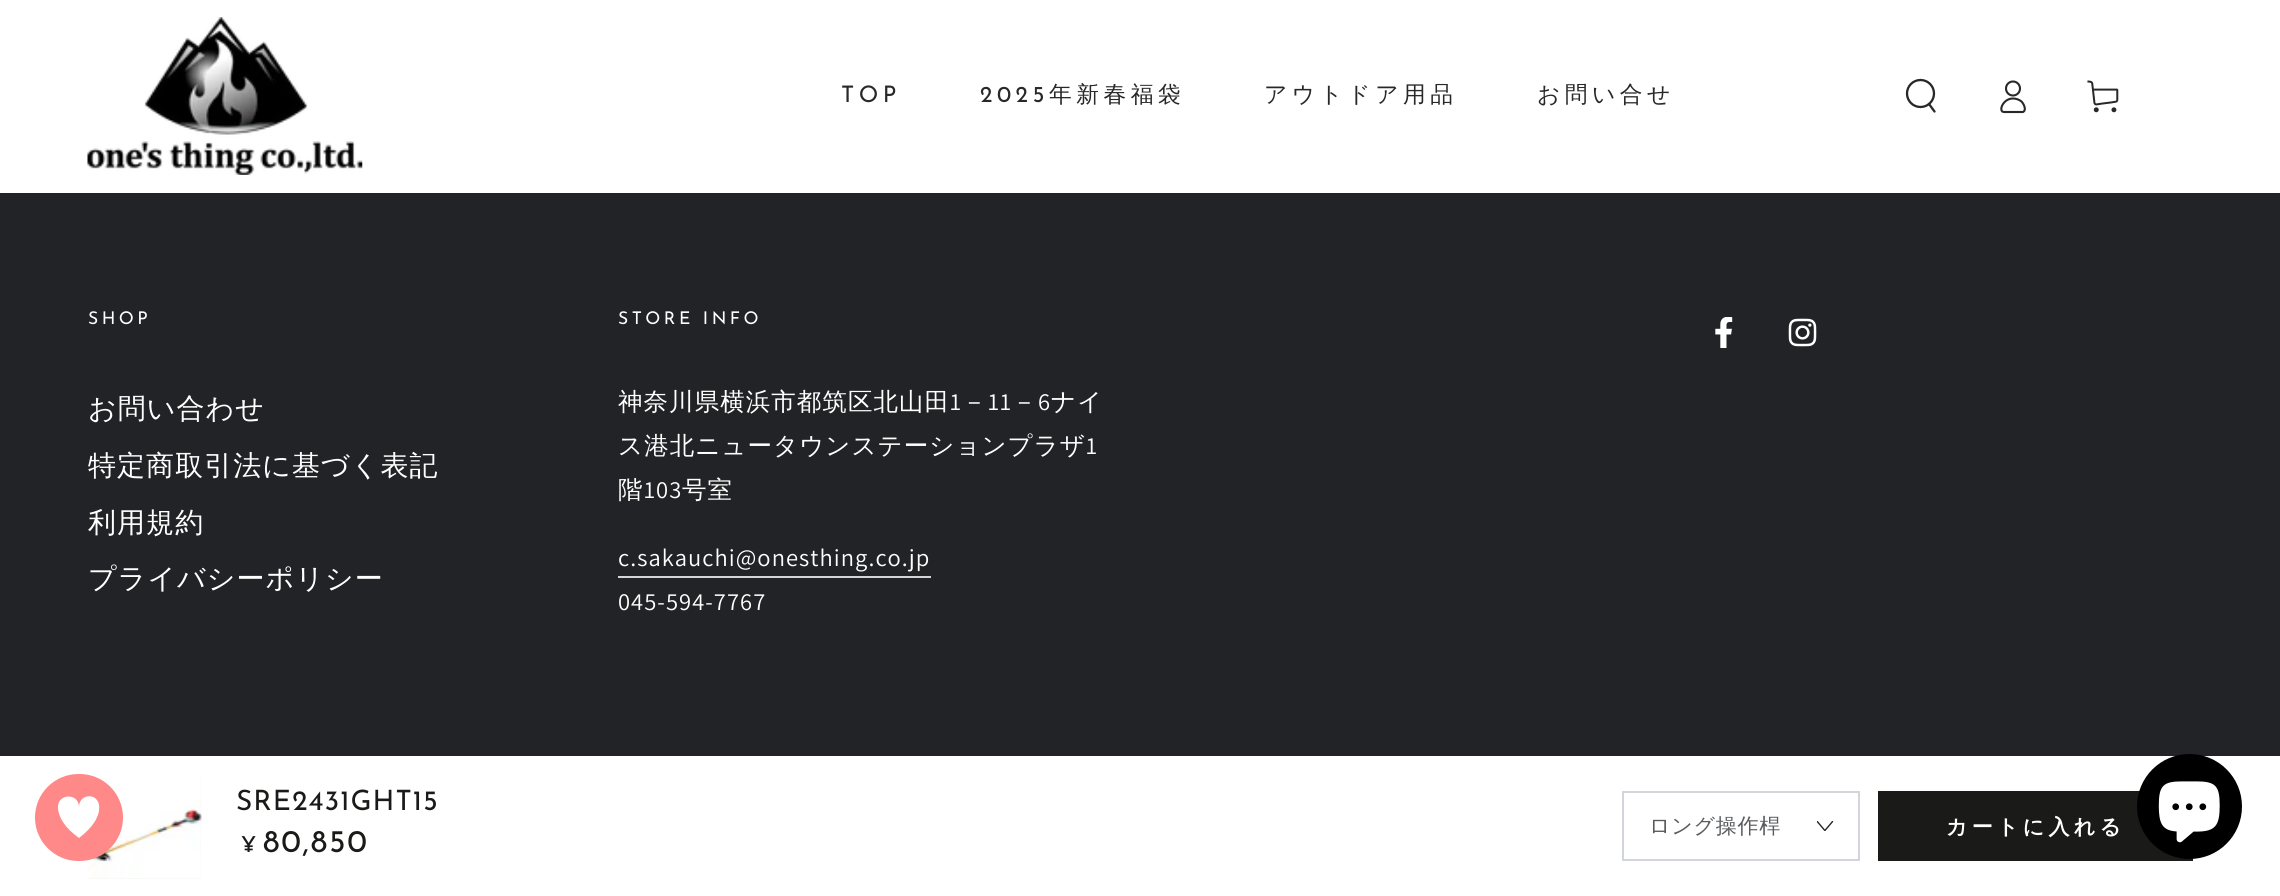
import math
import cairo



def draw_spaced(context, x, y, s, letter, word):
    context.move_to(x, y)
    for ch in s:
        context.show_text(ch)
        context.rel_move_to(letter + word * (ch == ' '), 0)


def rounded_rect(context, x, y, w, h, r):
    context.new_sub_path()
    for i, (u, v) in enumerate([(x + w - r, y + h - r), (x + r, y + h - r), (x + r, y + r), (x + w - r, y + r)]):
        context.arc(u, v, r, i * math.pi / 2, (i + 1) * math.pi / 2)
    context.close_path()


def draw_image(context, path, x, y, w, h):
    context.save()
    context.set_source_surface(cairo.ImageSurface.create_from_png(path), x, y)
    context.rectangle(x, y, w, h)
    context.fill()
    context.restore()


def draw(context):
    context.set_source_rgb(33 / 255, 35 / 255, 38 / 255)
    context.paint()
    context.set_source_rgb(1, 1, 1)
    context.rectangle(0, 756, 2280, 140)
    context.fill()
    context.set_source_rgb(243 / 255, 243 / 255, 243 / 255)
    context.rectangle(88, 774, 113, 105)
    context.fill()
    draw_image(context, "images/5.png", 87, 774, 115, 105)
    context.set_source_rgb(1, 136 / 255, 136 / 255)
    rounded_rect(context, 35, 774, 88, 87, 43.5)
    context.fill()
    context.set_source_rgb(1, 1, 1)
    context.new_path()
    context.move_to(58, 807)
    context.curve_to(58, 793, 79, 793, 79, 807)
    context.curve_to(79, 792, 102, 792, 99, 811)
    context.curve_to(97, 822, 88, 831, 79, 838)
    context.curve_to(65, 828, 58, 817, 58, 807)
    context.close_path()
    context.fill()
    context.rectangle(0, 0, 2280, 193)
    context.fill()
    draw_image(context, "images/1.png", 87, 17, 276, 158)
    context.arc(1920.5, 93.5, 13.5, 0, 2 * math.pi)
    context.set_source_rgb(40 / 255, 40 / 255, 40 / 255)
    context.set_line_width(2.3)
    context.stroke()
    context.new_path()
    context.move_to(1929, 104)
    context.line_to(1934.5, 111.5)
    context.set_line_cap(cairo.LineCap.ROUND)
    context.stroke()
    context.new_path()
    context.move_to(2013, 98.5)
    context.curve_to(2002.5, 98.5, 1998, 112, 2004, 112)
    context.line_to(2023, 112)
    context.curve_to(2027, 110, 2023.5, 103.5, 2021.5, 101.5)
    context.curve_to(2019, 99.5, 2016, 98.5, 2013, 98.5)
    context.close_path()
    context.set_line_width(2.1)
    context.set_line_cap(cairo.LineCap.BUTT)
    context.stroke()
    context.arc(2013, 88.5, 7, 0, 2 * math.pi)
    context.stroke()
    draw_image(context, "images/2.png", 2087, 80, 32, 33)
    context.set_source_rgb(210 / 255, 213 / 255, 217 / 255)
    context.rectangle(618, 576, 313, 2)
    context.fill()
    draw_image(context, "images/3.png", 1715, 317, 18, 31)
    draw_image(context, "images/4.png", 1788, 318, 29, 29)
    context.rectangle(1623, 792, 236, 68)
    context.set_line_width(2)
    context.stroke()
    draw_image(context, "images/6.png", 1817, 821, 17, 10)
    context.set_source_rgb(26 / 255, 27 / 255, 24 / 255)
    context.rectangle(1878, 791, 315, 70)
    context.fill()
    context.set_source_rgb(0, 0, 0)
    context.arc(2189.5, 806.5, 52.5, 0, 2 * math.pi)
    context.fill()
    draw_image(context, "images/7.png", 2158, 781, 62, 62)
    context.select_font_face("Josefin Sans")
    context.set_font_size(22.75)
    context.set_source_rgb(40 / 255, 40 / 255, 40 / 255)
    draw_spaced(context, 841, 102, "TOP", 4.5, 0)
    draw_spaced(context, 980, 102, "2025", 4.5, 0)
    context.select_font_face("WenQuanYi Zen Hei Medium")
    draw_spaced(context, 1049, 102, "年新春福袋", 4.5, 0)
    draw_spaced(context, 1264, 102, "アウトドア用品", 4.5, 0)
    draw_spaced(context, 1537, 102, "お問い合せ", 4.5, 0)
    context.select_font_face("Josefin Sans")
    context.set_font_size(17.5)
    context.set_source_rgb(1, 1, 1)
    draw_spaced(context, 88, 324, "SHOP", 3.5, 0)
    context.select_font_face("WenQuanYi Zen Hei Medium")
    context.set_font_size(28)
    draw_spaced(context, 88, 418, "お問い合わせ", 1.05, 0)
    draw_spaced(context, 88, 475, "特定商取引法に基づく表記", 1.05, 0)
    draw_spaced(context, 88, 532, "利用規約", 1.05, 0)
    draw_spaced(context, 88, 588, "プライバシーポリシー", 1.05, 0)
    context.select_font_face("Josefin Sans")
    context.set_font_size(17.5)
    draw_spaced(context, 618, 324, "STORE INFO", 3.5, 0)
    context.select_font_face("WenQuanYi Zen Hei Medium")
    context.set_font_size(24.5)
    draw_spaced(context, 618, 410, "神奈川県横浜市都筑区北山田", 1.05, 0)
    context.select_font_face("Assistant")
    draw_spaced(context, 950, 410, "1", 1.05, 0)
    context.select_font_face("WenQuanYi Zen Hei Medium")
    draw_spaced(context, 962, 410, "－", 1.05, 0)
    context.select_font_face("Assistant")
    draw_spaced(context, 988, 410, "11", 1.05, 0)
    context.select_font_face("WenQuanYi Zen Hei Medium")
    draw_spaced(context, 1012, 410, "－", 1.05, 0)
    context.select_font_face("Assistant")
    draw_spaced(context, 1038, 410, "6", 1.05, 0)
    context.select_font_face("WenQuanYi Zen Hei Medium")
    draw_spaced(context, 1051, 410, "ナイ", 1.05, 0)
    draw_spaced(context, 618, 454, "ス港北ニュータウンステーションプラザ", 1.05, 0)
    context.select_font_face("Assistant")
    draw_spaced(context, 1086, 454, "1", 1.05, 0)
    context.select_font_face("WenQuanYi Zen Hei Medium")
    draw_spaced(context, 618, 498, "階", 1.05, 0)
    context.select_font_face("Assistant")
    draw_spaced(context, 644, 498, "103", 1.05, 0)
    context.select_font_face("WenQuanYi Zen Hei Medium")
    draw_spaced(context, 682, 498, "号室", 1.05, 0)
    context.select_font_face("Assistant")
    draw_spaced(context, 618, 566, "c.sakauchi@onesthing.co.jp", 1.05, 0)
    draw_spaced(context, 618, 610, "045-594-7767", 1.05, 0)
    context.select_font_face("Josefin Sans")
    context.set_font_size(28)
    context.set_source_rgb(26 / 255, 27 / 255, 24 / 255)
    draw_spaced(context, 236, 810, "SRE2431GHT15", 1.05, 0)
    context.set_font_size(22)
    draw_spaced(context, 241, 852, "¥", 1.75, 0)
    context.set_font_size(31.5)
    draw_spaced(context, 263, 852, "80,850", 1.75, 0)
    context.select_font_face("WenQuanYi Zen Hei Medium")
    context.set_font_size(21)
    context.set_source_rgb(89 / 255, 90 / 255, 92 / 255)
    draw_spaced(context, 1649, 833, "ロング操作桿", 0.75, 0)
    context.select_font_face("WenQuanYi Zen Hei", cairo.FontSlant.NORMAL, cairo.FontWeight.BOLD)
    context.set_source_rgb(1, 1, 1)
    draw_spaced(context, 1946, 834, "カートに入れる", 4.25, 0)


surface = cairo.ImageSurface(cairo.Format.RGB24, 2280, 896)
context = cairo.Context(surface)
options = cairo.FontOptions()
options.set_hint_metrics(cairo.HintMetrics.OFF)
options.set_hint_style(cairo.HintStyle.NONE)
context.set_font_options(options)
context.set_miter_limit(4)
draw(context)
surface.write_to_png("out.png")
